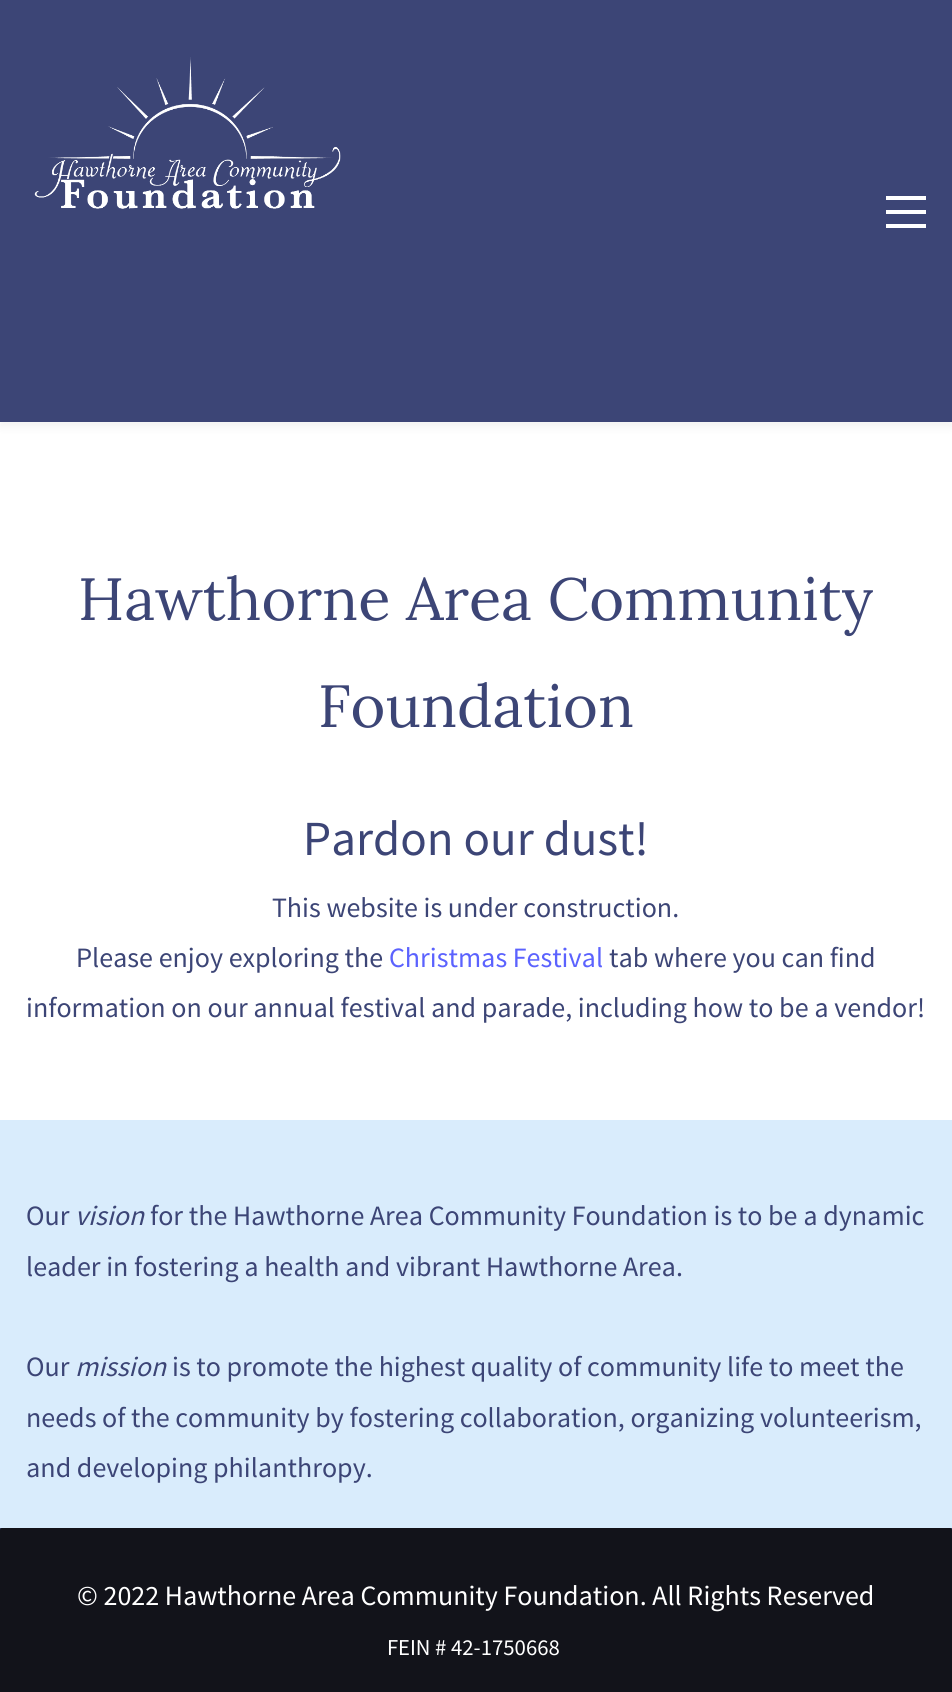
import math
import cairo



def rounded_rect(context, x, y, w, h, r):
    context.new_sub_path()
    for i, (u, v) in enumerate([(x + w - r, y + h - r), (x + r, y + h - r), (x + r, y + r), (x + w - r, y + r)]):
        context.arc(u, v, r, i * math.pi / 2, (i + 1) * math.pi / 2)
    context.close_path()


def draw_shadow(context, x, y, w, h, r, blur, alpha):
    context.push_group_with_content(cairo.Content.ALPHA)
    context.set_operator(cairo.Operator.SOURCE)
    for i in range(15, -16, -2):
        e = blur * i / 6
        if min(w, h) + 2 * e > 0:
            context.set_source_rgba(0, 0, 0, alpha * math.erfc((i - 1) / 8.5) / 2)
            rounded_rect(context, x - e, y - e, w + 2 * e, h + 2 * e, max(0, min(r + e + blur * .6, min(w, h) / 2 + e)))
            context.fill()
    context.mask(context.pop_group())


def draw_image(context, path, x, y, w, h):
    context.save()
    context.set_source_surface(cairo.ImageSurface.create_from_png(path), x, y)
    context.rectangle(x, y, w, h)
    context.fill()
    context.restore()


def draw(context):
    context.set_source_rgb(1, 1, 1)
    context.paint()
    context.set_source_rgb(0, 0, 0)
    draw_shadow(context, 0, 5, 952, 422, 0, 4.5, 0.05)
    context.set_source_rgb(60 / 255, 69 / 255, 118 / 255)
    context.rectangle(0, 0, 952, 422)
    context.fill()
    draw_image(context, "images/1.png", 34, 57, 307, 152)
    context.set_source_rgb(1, 1, 1)
    context.rectangle(886, 196, 40, 4)
    context.fill()
    context.rectangle(886, 210, 40, 4)
    context.fill()
    context.rectangle(886, 224, 40, 4)
    context.fill()
    context.set_source_rgb(217 / 255, 236 / 255, 252 / 255)
    context.rectangle(0, 1120, 952, 408)
    context.fill()
    context.set_source_rgb(60 / 255, 69 / 255, 118 / 255)
    context.rectangle(0, 1528, 952, 2)
    context.fill()
    context.set_source_rgb(18 / 255, 19 / 255, 26 / 255)
    rounded_rect(context, 0, 1528, 952, 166, 2)
    context.fill()
    context.select_font_face("Lora")
    context.set_font_size(59.5)
    context.set_source_rgb(60 / 255, 69 / 255, 118 / 255)
    context.move_to(78, 620)
    context.show_text("Hawthorne Area Community")
    context.move_to(318, 727)
    context.show_text("Foundation")
    context.select_font_face("Source Sans Pro")
    context.set_font_size(49)
    context.move_to(303, 855)
    context.show_text("Pardon our dust!")
    context.set_font_size(28)
    context.move_to(272, 917)
    context.show_text("This website is under construction.")
    context.move_to(76, 967)
    context.show_text("Please enjoy exploring the")
    context.set_source_rgb(91 / 255, 98 / 255, 254 / 255)
    context.move_to(389, 967)
    context.show_text("Christmas Festival")
    context.set_source_rgb(60 / 255, 69 / 255, 118 / 255)
    context.move_to(609, 967)
    context.show_text("tab where you can find")
    context.move_to(26, 1017)
    context.show_text("information on our annual festival and parade, including how to be a vendor!")
    context.move_to(26, 1225)
    context.show_text("Our")
    context.select_font_face("Source Sans Pro", cairo.FontSlant.ITALIC)
    context.move_to(75, 1225)
    context.show_text("vision")
    context.select_font_face("Source Sans Pro")
    context.move_to(150, 1225)
    context.show_text("for the Hawthorne Area Community Foundation is to be a dynamic")
    context.move_to(26, 1276)
    context.show_text("leader in fostering a health and vibrant Hawthorne Area.")
    context.move_to(26, 1376)
    context.show_text("Our")
    context.select_font_face("Source Sans Pro", cairo.FontSlant.ITALIC)
    context.move_to(75, 1376)
    context.show_text("mission")
    context.select_font_face("Source Sans Pro")
    context.move_to(172, 1376)
    context.show_text("is to promote the highest quality of community life to meet the")
    context.move_to(26, 1427)
    context.show_text("needs of the community by fostering collaboration, organizing volunteerism,")
    context.move_to(26, 1477)
    context.show_text("and developing philanthropy.")
    context.set_source_rgb(1, 1, 1)
    context.move_to(77, 1605)
    context.show_text("© 2022 Hawthorne Area Community Foundation. All Rights Reserved")
    context.set_font_size(22.75)
    context.move_to(387, 1655)
    context.show_text("FEIN # 42-1750668")


surface = cairo.ImageSurface(cairo.Format.RGB24, 952, 1692)
context = cairo.Context(surface)
options = cairo.FontOptions()
options.set_hint_metrics(cairo.HintMetrics.OFF)
options.set_hint_style(cairo.HintStyle.NONE)
context.set_font_options(options)
context.set_miter_limit(4)
draw(context)
surface.write_to_png("out.png")
